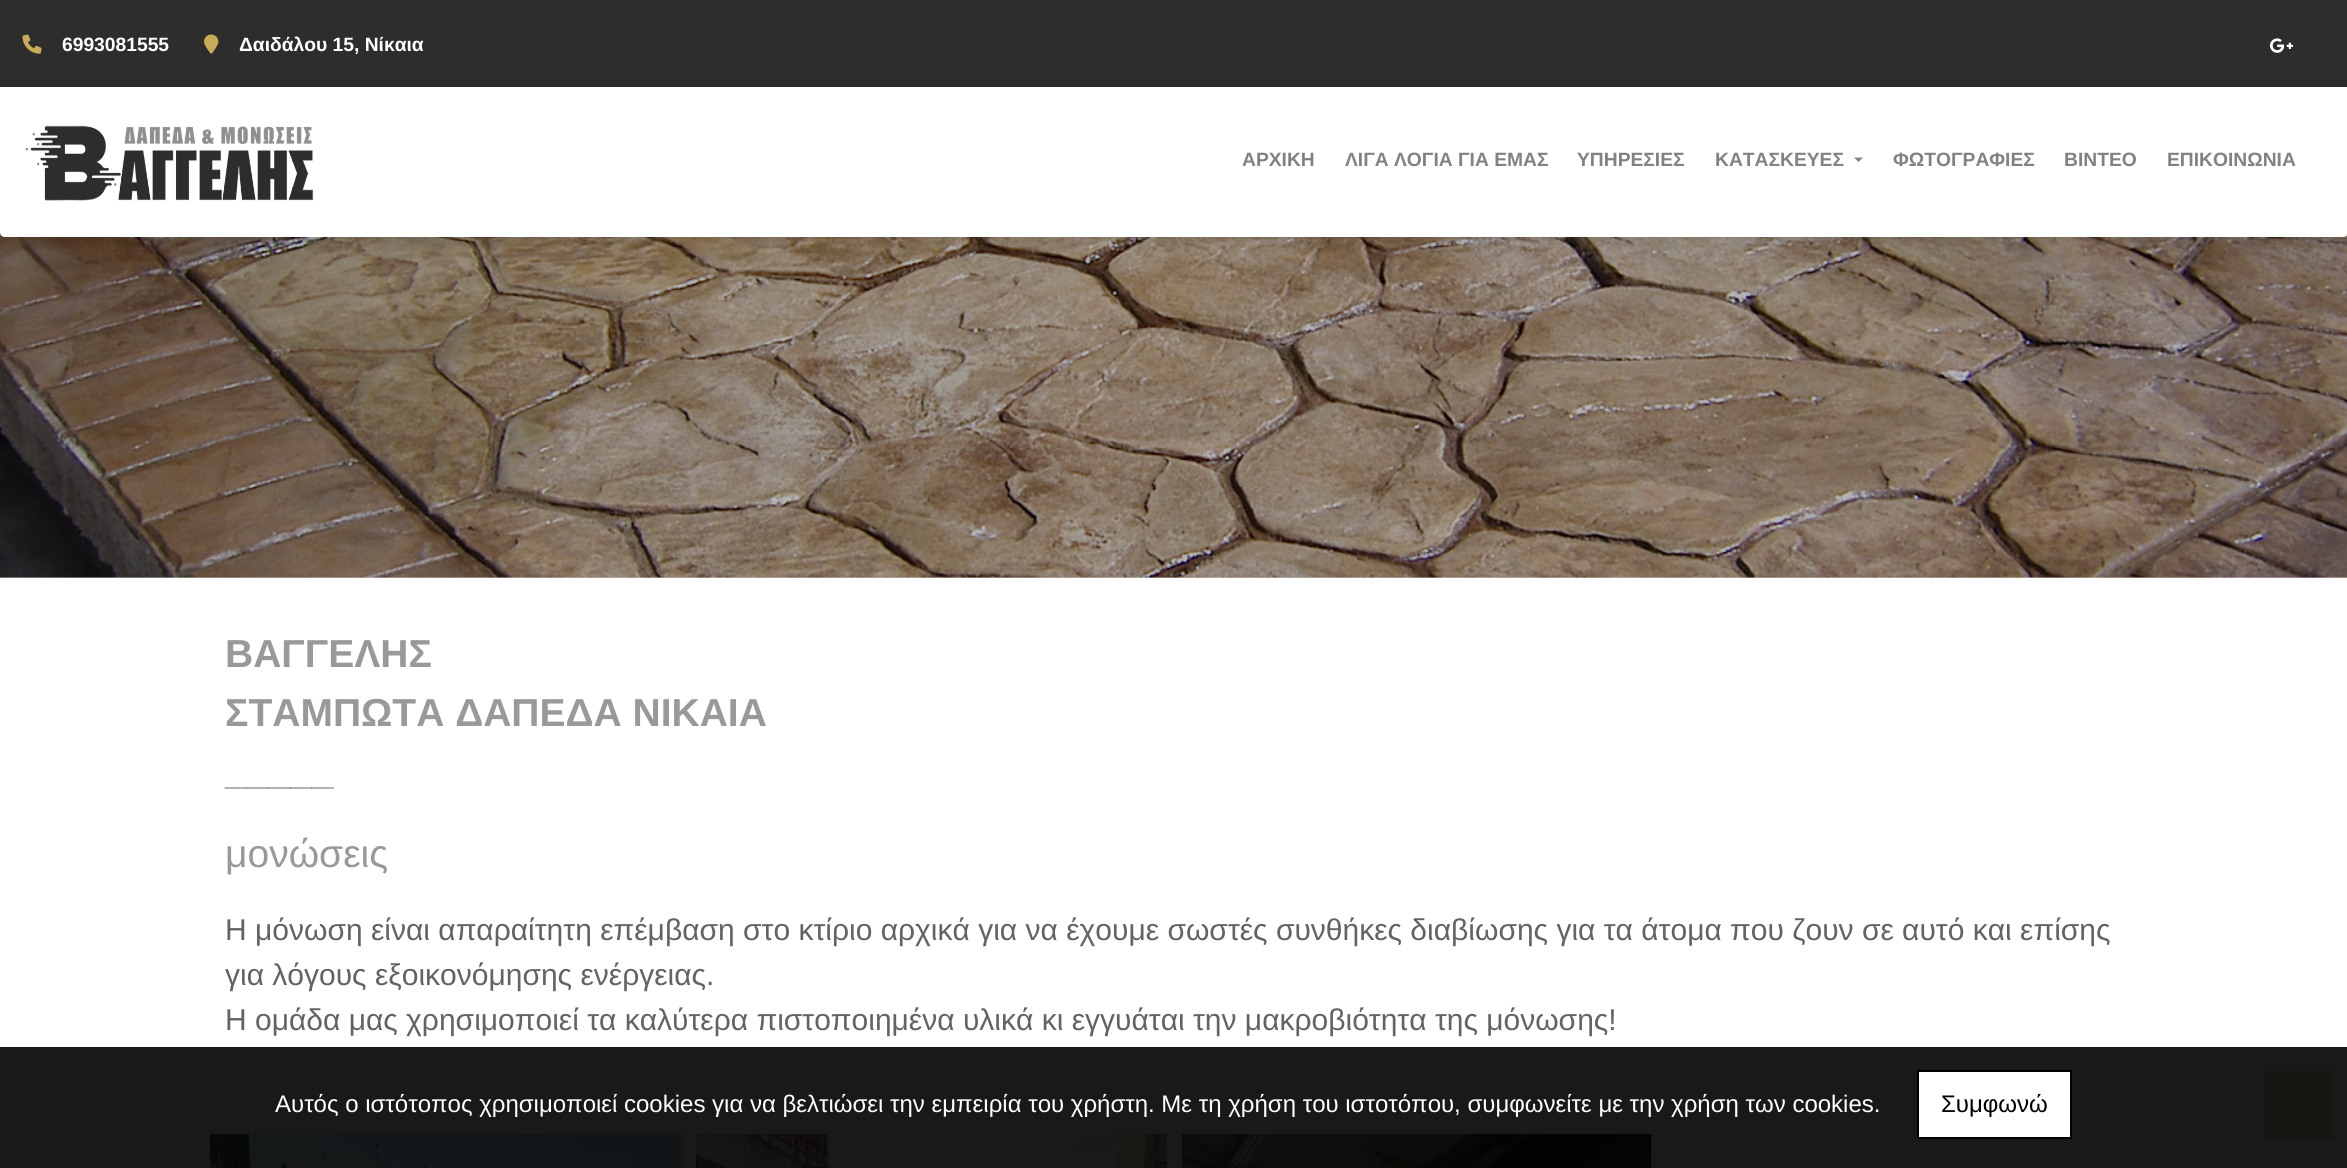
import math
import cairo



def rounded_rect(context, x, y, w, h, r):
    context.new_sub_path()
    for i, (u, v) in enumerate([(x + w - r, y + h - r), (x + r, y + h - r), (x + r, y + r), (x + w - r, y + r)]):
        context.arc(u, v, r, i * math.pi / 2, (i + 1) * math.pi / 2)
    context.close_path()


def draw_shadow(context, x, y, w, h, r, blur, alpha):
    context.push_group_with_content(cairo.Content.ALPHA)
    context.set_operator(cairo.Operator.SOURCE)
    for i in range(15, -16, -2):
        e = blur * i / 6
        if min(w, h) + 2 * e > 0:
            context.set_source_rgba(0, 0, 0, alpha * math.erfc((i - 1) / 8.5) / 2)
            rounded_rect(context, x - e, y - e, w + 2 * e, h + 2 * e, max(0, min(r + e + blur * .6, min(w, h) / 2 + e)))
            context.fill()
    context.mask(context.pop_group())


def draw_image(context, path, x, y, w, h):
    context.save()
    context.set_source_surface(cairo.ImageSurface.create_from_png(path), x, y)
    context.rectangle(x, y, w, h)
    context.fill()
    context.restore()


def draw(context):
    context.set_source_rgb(1, 1, 1)
    context.paint()
    context.set_source_rgb(25 / 255, 25 / 255, 25 / 255)
    context.rectangle(0, 1047, 2347, 121)
    context.fill()
    context.set_source_rgb(45 / 255, 45 / 255, 45 / 255)
    context.rectangle(0, 0, 2347, 87)
    context.fill()
    draw_image(context, "images/1.png", 22, 34, 20, 20)
    draw_image(context, "images/2.png", 204, 34, 15, 20)
    draw_image(context, "images/3.png", 2270, 38, 23, 15)
    context.set_source_rgb(193 / 255, 193 / 255, 193 / 255)
    context.rectangle(0, 577, 2347, 1)
    context.fill()
    draw_image(context, "images/5.png", 0, 232, 2347, 346)
    context.set_source_rgb(0, 0, 0)
    draw_shadow(context, 0, 87, 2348, 150, 5, 7.5, 0.15)
    context.set_source_rgb(1, 1, 1)
    context.new_path()
    context.move_to(0, 87)
    context.line_to(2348, 87)
    context.line_to(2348, 232)
    context.curve_to(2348, 235, 2346, 237, 2343, 237)
    context.line_to(5, 237)
    context.curve_to(2, 237, 0, 235, 0, 232)
    context.close_path()
    context.fill()
    draw_image(context, "images/4.png", 25, 125, 289, 76)
    context.set_source_rgb(130 / 255, 130 / 255, 130 / 255)
    context.new_path()
    context.move_to(1854, 157.5)
    context.line_to(1863, 157.5)
    context.line_to(1858.5, 162)
    context.close_path()
    context.fill()
    draw_image(context, "images/6.png", 210, 1134, 471, 34)
    draw_image(context, "images/7.png", 696, 1134, 471, 34)
    draw_image(context, "images/8.png", 1182, 1134, 470, 34)
    context.set_source_rgb(1, 1, 1)
    context.rectangle(1918, 1071, 153, 67)
    context.fill_preserve()
    context.set_source_rgb(0, 0, 0)
    context.stroke()
    context.set_source_rgb(23 / 255, 21 / 255, 17 / 255)
    context.rectangle(2264, 1071, 69, 68)
    context.fill()
    draw_image(context, "images/9.png", 2290, 1098, 16, 9)
    context.select_font_face("Arimo", cairo.FontSlant.NORMAL, cairo.FontWeight.BOLD)
    context.set_font_size(19.25)
    context.set_source_rgb(1, 1, 1)
    context.move_to(62, 51)
    context.show_text("6993081555")
    context.move_to(239, 51)
    context.show_text("Δαιδάλου 15, Νίκαια")
    context.set_source_rgb(130 / 255, 130 / 255, 130 / 255)
    context.move_to(1242, 166)
    context.show_text("ΑΡΧΙΚΗ")
    context.move_to(1345, 166)
    context.show_text("ΛΙΓΑ ΛΟΓΙΑ ΓΙΑ ΕΜΑΣ")
    context.move_to(1577, 166)
    context.show_text("ΥΠΗΡΕΣΙΕΣ")
    context.move_to(1715, 166)
    context.show_text("ΚΑΤΑΣΚΕΥΕΣ")
    context.move_to(1893, 166)
    context.show_text("ΦΩΤΟΓΡΑΦΙΕΣ")
    context.move_to(2064, 166)
    context.show_text("ΒΙΝΤΕΟ")
    context.move_to(2167, 166)
    context.show_text("ΕΠΙΚΟΙΝΩΝΙΑ")
    context.set_font_size(39)
    context.set_source_rgb(153 / 255, 153 / 255, 153 / 255)
    context.move_to(225, 667)
    context.show_text("ΒΑΓΓΕΛΗΣ")
    context.move_to(225, 726)
    context.show_text("ΣΤΑΜΠΩΤΑ ΔΑΠΕΔΑ ΝΙΚΑΙΑ")
    context.move_to(225, 784)
    context.show_text("_____")
    context.select_font_face("Arimo")
    context.move_to(225, 867)
    context.show_text("μονώσεις")
    context.set_font_size(30)
    context.set_source_rgb(99 / 255, 99 / 255, 99 / 255)
    context.move_to(225, 940)
    context.show_text("Η μόνωση είναι απαραίτητη επέμβαση στο κτίριο αρχικά για να έχουμε σωστές συνθήκες διαβίωσης για τα άτομα που ζουν σε αυτό και επίσης")
    context.move_to(225, 985)
    context.show_text("για λόγους εξοικονόμησης ενέργειας.")
    context.move_to(225, 1030)
    context.show_text("Η ομάδα μας χρησιμοποιεί τα καλύτερα πιστοποιημένα υλικά κι εγγυάται την μακροβιότητα της μόνωσης!")
    context.set_font_size(24)
    context.set_source_rgb(1, 1, 1)
    context.move_to(275, 1112)
    context.show_text("Αυτός ο ιστότοπος χρησιμοποιεί cookies για να βελτιώσει την εμπειρία του χρήστη. Με τη χρήση του ιστοτόπου, συμφωνείτε με την χρήση των cookies.")
    context.set_source_rgb(0, 0, 0)
    context.move_to(1941, 1112)
    context.show_text("Συμφωνώ")


surface = cairo.ImageSurface(cairo.Format.RGB24, 2347, 1168)
context = cairo.Context(surface)
options = cairo.FontOptions()
options.set_hint_metrics(cairo.HintMetrics.OFF)
options.set_hint_style(cairo.HintStyle.NONE)
context.set_font_options(options)
context.set_miter_limit(4)
draw(context)
surface.write_to_png("out.png")
